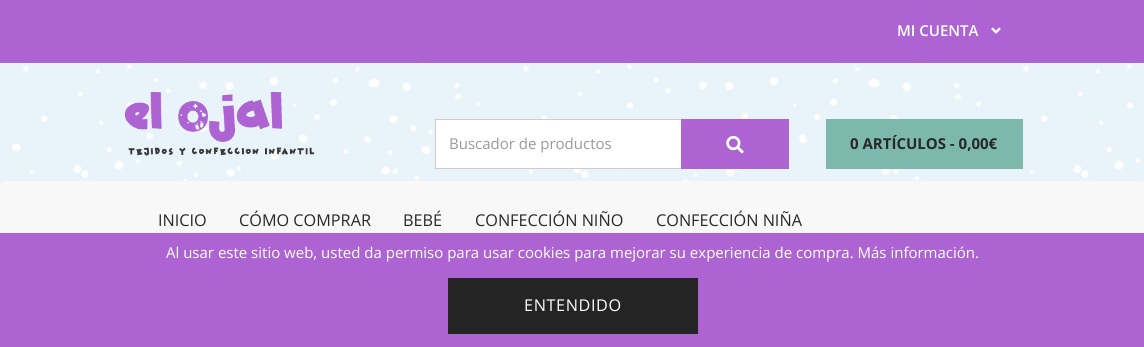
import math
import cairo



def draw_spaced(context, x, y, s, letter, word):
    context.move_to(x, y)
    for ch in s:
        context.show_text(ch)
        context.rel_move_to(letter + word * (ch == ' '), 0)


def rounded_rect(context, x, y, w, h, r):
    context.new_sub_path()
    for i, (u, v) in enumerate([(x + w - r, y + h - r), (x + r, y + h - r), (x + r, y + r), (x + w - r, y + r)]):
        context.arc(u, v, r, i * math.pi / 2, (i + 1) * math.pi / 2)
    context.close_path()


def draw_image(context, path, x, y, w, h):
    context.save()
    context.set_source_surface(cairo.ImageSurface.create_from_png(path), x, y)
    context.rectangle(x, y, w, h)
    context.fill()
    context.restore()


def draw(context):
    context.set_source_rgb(1, 1, 1)
    context.paint()
    draw_image(context, "images/1.png", 0, 63, 1144, 123)
    context.set_source_rgb(173 / 255, 100 / 255, 210 / 255)
    context.rectangle(0, 0, 1144, 63)
    context.fill()
    draw_image(context, "images/2.png", 991, 27, 10, 7)
    draw_image(context, "images/3.png", 124, 92, 191, 64)
    context.set_source_rgb(1, 1, 1)
    context.rectangle(436, 120, 245, 48)
    context.fill()
    context.rectangle(435.5, 119.5, 247, 49)
    context.set_source_rgb(204 / 255, 204 / 255, 204 / 255)
    context.set_line_width(1)
    context.stroke()
    context.set_source_rgb(173 / 255, 100 / 255, 210 / 255)
    context.rectangle(681, 119, 108, 50)
    context.fill()
    draw_image(context, "images/4.png", 726, 135, 18, 19)
    context.set_source_rgb(125 / 255, 184 / 255, 172 / 255)
    context.rectangle(826, 119, 197, 50)
    context.fill()
    context.set_source_rgb(248 / 255, 248 / 255, 248 / 255)
    rounded_rect(context, 0, 181, 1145, 153, 5)
    context.fill()
    rounded_rect(context, 0.5, 181.5, 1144, 152, 4.5)
    context.set_source_rgba(248 / 255, 248 / 255, 248 / 255, 0.88)
    context.stroke()
    context.set_source_rgb(173 / 255, 100 / 255, 210 / 255)
    context.rectangle(0, 233, 1144, 114)
    context.fill()
    context.set_source_rgb(36 / 255, 36 / 255, 36 / 255)
    context.rectangle(448, 278, 250, 56)
    context.fill()
    context.select_font_face("Open Sans SemiBold")
    context.set_font_size(15)
    context.set_source_rgb(1, 1, 1)
    context.move_to(897, 36)
    context.show_text("MI CUENTA")
    context.select_font_face("Open Sans")
    context.set_source_rgb(153 / 255, 153 / 255, 153 / 255)
    context.move_to(449, 149)
    context.show_text("Buscador de productos")
    context.select_font_face("Open Sans", cairo.FontSlant.NORMAL, cairo.FontWeight.BOLD)
    context.set_source_rgb(40 / 255, 40 / 255, 40 / 255)
    context.move_to(850, 149)
    context.show_text("0 ARTÍCULOS - 0,00€")
    context.select_font_face("Open Sans")
    context.set_font_size(16.25)
    context.move_to(158, 226)
    context.show_text("INICIO")
    context.move_to(239, 226)
    context.show_text("CÓMO COMPRAR")
    context.move_to(403, 226)
    context.show_text("BEBÉ")
    context.move_to(475, 226)
    context.show_text("CONFECCIÓN NIÑO")
    context.move_to(656, 226)
    context.show_text("CONFECCIÓN NIÑA")
    context.set_font_size(15)
    context.set_source_rgb(1, 1, 1)
    context.move_to(166, 258)
    context.show_text("Al usar este sitio web, usted da permiso para usar cookies para mejorar su experiencia de compra. Más información.")
    context.set_font_size(16.25)
    draw_spaced(context, 524, 311, "ENTENDIDO", 0.6, 0)


surface = cairo.ImageSurface(cairo.Format.RGB24, 1144, 347)
context = cairo.Context(surface)
options = cairo.FontOptions()
options.set_hint_metrics(cairo.HintMetrics.OFF)
options.set_hint_style(cairo.HintStyle.NONE)
context.set_font_options(options)
context.set_miter_limit(4)
draw(context)
surface.write_to_png("out.png")
